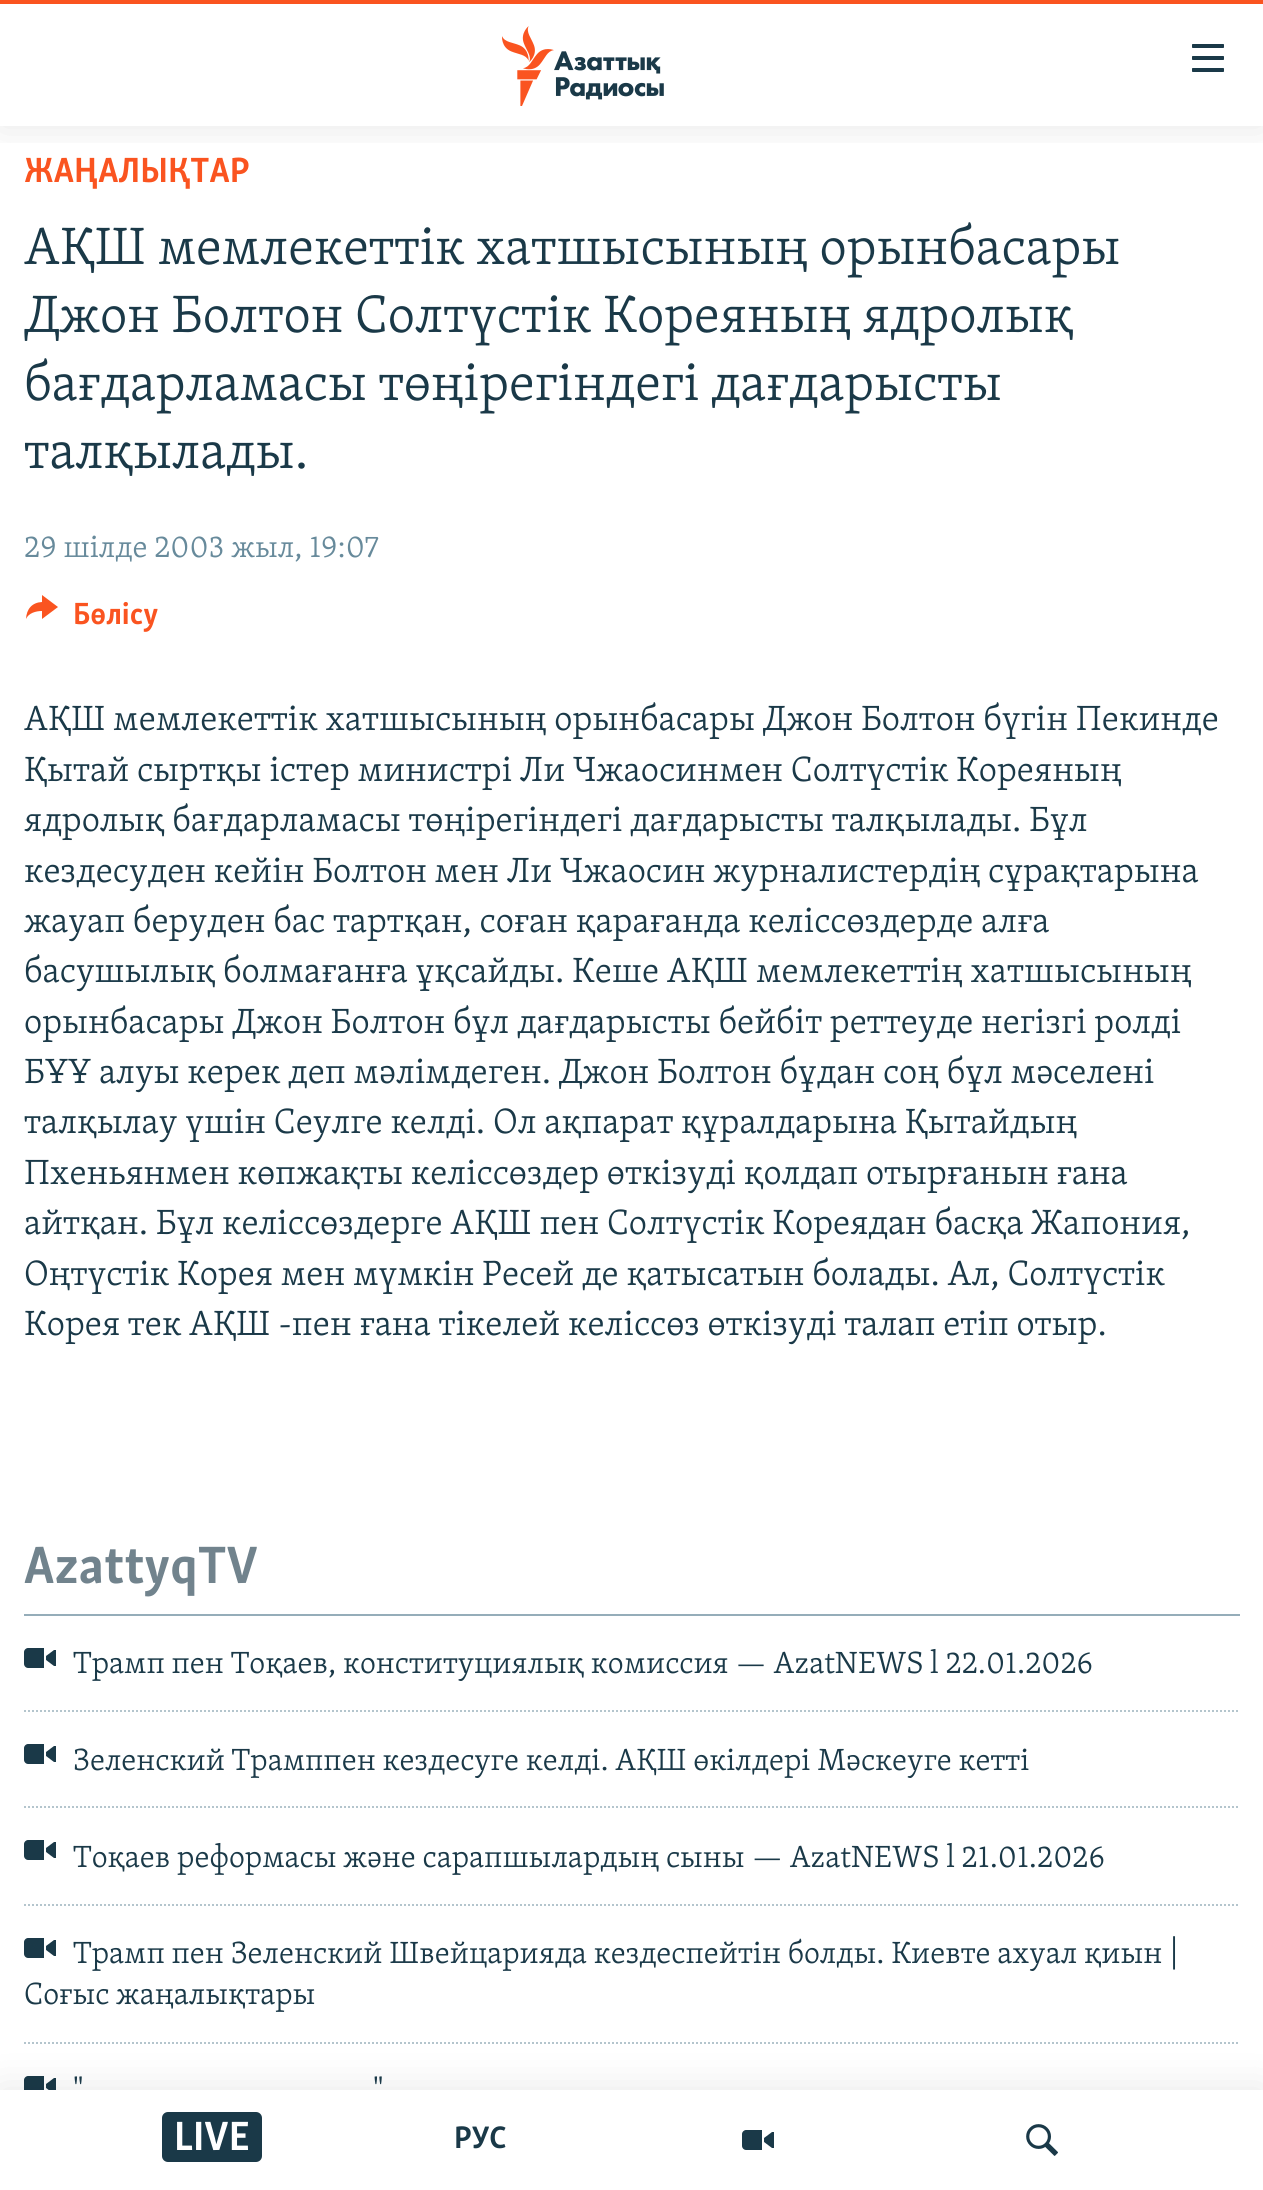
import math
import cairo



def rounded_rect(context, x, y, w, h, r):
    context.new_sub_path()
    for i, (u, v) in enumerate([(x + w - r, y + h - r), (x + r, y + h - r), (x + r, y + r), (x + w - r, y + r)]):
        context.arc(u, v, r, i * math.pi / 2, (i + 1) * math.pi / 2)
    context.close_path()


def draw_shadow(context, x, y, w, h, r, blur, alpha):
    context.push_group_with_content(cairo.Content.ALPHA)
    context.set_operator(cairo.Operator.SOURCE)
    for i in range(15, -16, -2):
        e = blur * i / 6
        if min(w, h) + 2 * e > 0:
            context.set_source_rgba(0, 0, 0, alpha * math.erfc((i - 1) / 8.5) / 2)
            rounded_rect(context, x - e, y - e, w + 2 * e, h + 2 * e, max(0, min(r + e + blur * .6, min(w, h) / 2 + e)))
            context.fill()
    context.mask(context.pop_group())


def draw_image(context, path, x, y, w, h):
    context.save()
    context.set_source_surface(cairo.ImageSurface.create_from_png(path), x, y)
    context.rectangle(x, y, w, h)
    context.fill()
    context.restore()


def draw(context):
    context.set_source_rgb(1, 1, 1)
    context.paint()
    context.set_source_rgb(250 / 255, 84 / 255, 32 / 255)
    context.new_path()
    context.move_to(26, 619)
    context.curve_to(26.5, 609, 32, 602.5, 42, 602)
    context.line_to(42, 595)
    context.line_to(58, 607)
    context.line_to(42, 619)
    context.line_to(42, 611)
    context.curve_to(36, 611, 28.5, 613, 26, 619)
    context.close_path()
    context.fill()
    context.set_source_rgb(149 / 255, 173 / 255, 185 / 255)
    context.rectangle(24, 1614, 1216, 2)
    context.fill()
    draw_image(context, "images/1.png", 24, 1648, 32, 20)
    context.new_path()
    context.move_to(24, 1711)
    context.line_to(1240, 1711)
    context.set_source_rgb(180 / 255, 197 / 255, 205 / 255)
    context.set_dash([2, 2])
    context.stroke()
    draw_image(context, "images/1.png", 24, 1744, 32, 20)
    context.new_path()
    context.move_to(24, 1807)
    context.line_to(1240, 1807)
    context.stroke()
    draw_image(context, "images/1.png", 24, 1840, 32, 20)
    context.new_path()
    context.move_to(24, 1905)
    context.line_to(1240, 1905)
    context.stroke()
    draw_image(context, "images/1.png", 24, 1938, 32, 20)
    context.new_path()
    context.move_to(24, 2043)
    context.line_to(1240, 2043)
    context.stroke()
    draw_image(context, "images/2.png", 24, 2076, 32, 14)
    context.save()
    context.rectangle(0, 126, 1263, 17)
    context.clip()
    context.set_source_rgb(0, 0, 0)
    draw_shadow(context, 0, 0, 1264, 126, 0, 20, 0.1)
    context.restore()
    context.set_source_rgb(250 / 255, 84 / 255, 32 / 255)
    context.rectangle(0, 0, 1263, 4)
    context.fill()
    draw_image(context, "images/3.png", 502, 26, 162, 80)
    draw_image(context, "images/4.png", 1192, 44, 32, 28)
    context.set_source_rgb(0, 0, 0)
    draw_shadow(context, 0, 2090, 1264, 100, 0, 20, 0.1)
    context.set_source_rgb(1, 1, 1)
    context.rectangle(0, 2090, 1263, 100)
    context.fill()
    context.set_source_rgb(26 / 255, 57 / 255, 72 / 255)
    rounded_rect(context, 162, 2112, 100, 50, 6)
    context.fill()
    draw_image(context, "images/1.png", 742, 2130, 32, 20)
    draw_image(context, "images/5.png", 1026, 2124, 32, 32)
    context.select_font_face("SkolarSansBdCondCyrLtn", cairo.FontSlant.NORMAL, cairo.FontWeight.BOLD)
    context.set_font_size(36)
    context.set_source_rgb(250 / 255, 84 / 255, 32 / 255)
    context.move_to(24, 182)
    context.show_text("ЖАҢАЛЫҚТАР")
    context.select_font_face("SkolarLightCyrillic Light")
    context.set_font_size(54)
    context.set_source_rgb(26 / 255, 57 / 255, 72 / 255)
    context.move_to(24, 264)
    context.show_text("АҚШ мемлекеттік хатшысының орынбасары")
    context.move_to(24, 332)
    context.show_text("Джон Болтон Солтүстік Кореяның ядролық")
    context.move_to(24, 400)
    context.show_text("бағдарламасы төңірегіндегі дағдарысты")
    context.move_to(24, 468)
    context.show_text("талқылады.")
    context.set_font_size(31.5)
    context.set_source_rgb(103 / 255, 138 / 255, 155 / 255)
    context.move_to(24, 557)
    context.show_text("29 шілде 2003 жыл, 19:07")
    context.select_font_face("SkolarSansBdCondCyrLtn", cairo.FontSlant.NORMAL, cairo.FontWeight.BOLD)
    context.set_source_rgb(250 / 255, 84 / 255, 32 / 255)
    context.move_to(73, 624)
    context.show_text("Бөлісу")
    context.select_font_face("SkolarLightCyrillic Light")
    context.set_font_size(36)
    context.set_source_rgb(26 / 255, 57 / 255, 72 / 255)
    context.move_to(24, 730)
    context.show_text("АҚШ мемлекеттік хатшысының орынбасары Джон Болтон бүгін Пекинде")
    context.move_to(24, 781)
    context.show_text("Қытай сыртқы істер министрі Ли Чжаосинмен Солтүстік Кореяның")
    context.move_to(24, 831)
    context.show_text("ядролық бағдарламасы төңірегіндегі дағдарысты талқылады. Бұл")
    context.move_to(24, 882)
    context.show_text("кездесуден кейін Болтон мен Ли Чжаосин журналистердің сұрақтарына")
    context.move_to(24, 932)
    context.show_text("жауап беруден бас тартқан, соған қарағанда келіссөздерде алға")
    context.move_to(24, 982)
    context.show_text("басушылық болмағанға ұқсайды. Кеше АҚШ мемлекеттің хатшысының")
    context.move_to(24, 1033)
    context.show_text("орынбасары Джон Болтон бұл дағдарысты бейбіт реттеуде негізгі ролді")
    context.move_to(24, 1083)
    context.show_text("БҰҰ алуы керек деп мәлімдеген. Джон Болтон бұдан соң бұл мәселені")
    context.move_to(24, 1133)
    context.show_text("талқылау үшін Сеулге келді. Ол ақпарат құралдарына Қытайдың")
    context.move_to(24, 1184)
    context.show_text("Пхеньянмен көпжақты келіссөздер өткізуді қолдап отырғанын ғана")
    context.move_to(24, 1234)
    context.show_text("айтқан. Бұл келіссөздерге АҚШ пен Солтүстік Кореядан басқа Жапония,")
    context.move_to(24, 1285)
    context.show_text("Оңтүстік Корея мен мүмкін Ресей де қатысатын болады. Ал, Солтүстік")
    context.move_to(24, 1335)
    context.show_text("Корея тек АҚШ -пен ғана тікелей келіссөз өткізуді талап етіп отыр.")
    context.select_font_face("SkolarSansBdCondCyrLtn", cairo.FontSlant.NORMAL, cairo.FontWeight.BOLD)
    context.set_font_size(54)
    context.set_source_rgb(113 / 255, 131 / 255, 141 / 255)
    context.move_to(24, 1583)
    context.show_text("AzattyqTV")
    context.select_font_face("SkolarLightCyrillic Light")
    context.set_font_size(31.5)
    context.set_source_rgb(26 / 255, 57 / 255, 72 / 255)
    context.move_to(73, 1673)
    context.show_text("Трамп пен Тоқаев, конституциялық комиссия — AzatNEWS l 22.01.2026")
    context.move_to(73, 1770)
    context.show_text("Зеленский Трамппен кездесуге келді. АҚШ өкілдері Мәскеуге кетті")
    context.move_to(73, 1867)
    context.show_text("Тоқаев реформасы және сарапшылардың сыны — AzatNEWS l 21.01.2026")
    context.move_to(73, 1963)
    context.show_text("Трамп пен Зеленский Швейцарияда кездеспейтін болды. Киевте ахуал қиын |")
    context.move_to(24, 2004)
    context.show_text("Cоғыс жаңалықтары")
    context.move_to(73, 2101)
    context.show_text("\"")
    context.move_to(373, 2101)
    context.show_text("\"")
    context.select_font_face("SkolarSansBdCondCyrLtn", cairo.FontSlant.NORMAL, cairo.FontWeight.BOLD)
    context.set_font_size(42)
    context.set_source_rgb(1, 1, 1)
    context.move_to(174, 2150)
    context.show_text("LIVE")
    context.set_font_size(32)
    context.set_source_rgb(26 / 255, 57 / 255, 72 / 255)
    context.move_to(454, 2148)
    context.show_text("РУС")


surface = cairo.ImageSurface(cairo.Format.RGB24, 1263, 2190)
context = cairo.Context(surface)
options = cairo.FontOptions()
options.set_hint_metrics(cairo.HintMetrics.OFF)
options.set_hint_style(cairo.HintStyle.NONE)
context.set_font_options(options)
context.set_miter_limit(4)
draw(context)
surface.write_to_png("out.png")
